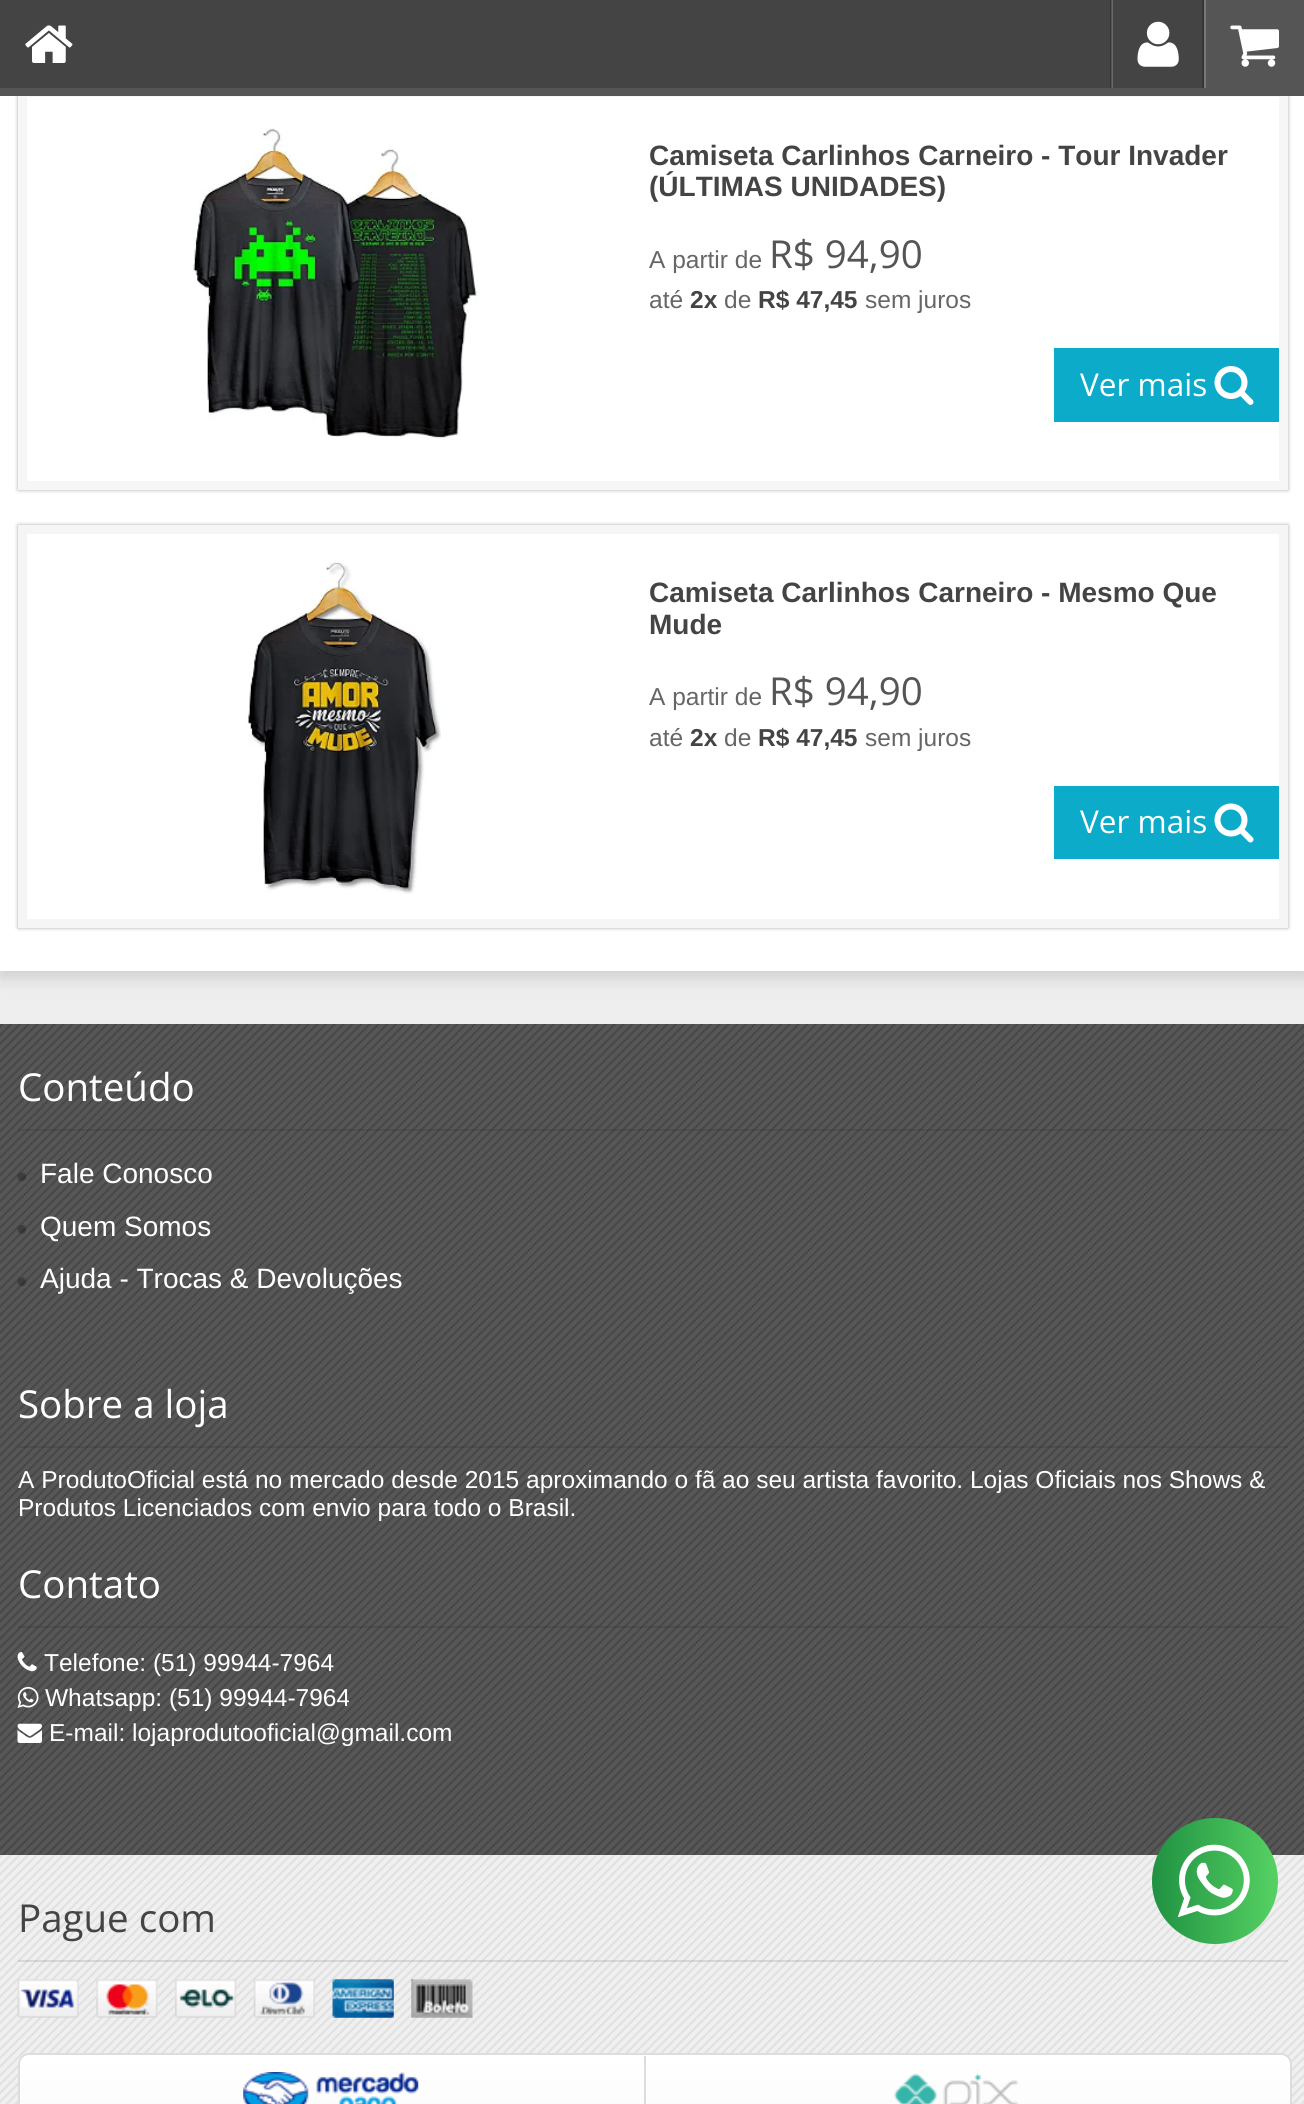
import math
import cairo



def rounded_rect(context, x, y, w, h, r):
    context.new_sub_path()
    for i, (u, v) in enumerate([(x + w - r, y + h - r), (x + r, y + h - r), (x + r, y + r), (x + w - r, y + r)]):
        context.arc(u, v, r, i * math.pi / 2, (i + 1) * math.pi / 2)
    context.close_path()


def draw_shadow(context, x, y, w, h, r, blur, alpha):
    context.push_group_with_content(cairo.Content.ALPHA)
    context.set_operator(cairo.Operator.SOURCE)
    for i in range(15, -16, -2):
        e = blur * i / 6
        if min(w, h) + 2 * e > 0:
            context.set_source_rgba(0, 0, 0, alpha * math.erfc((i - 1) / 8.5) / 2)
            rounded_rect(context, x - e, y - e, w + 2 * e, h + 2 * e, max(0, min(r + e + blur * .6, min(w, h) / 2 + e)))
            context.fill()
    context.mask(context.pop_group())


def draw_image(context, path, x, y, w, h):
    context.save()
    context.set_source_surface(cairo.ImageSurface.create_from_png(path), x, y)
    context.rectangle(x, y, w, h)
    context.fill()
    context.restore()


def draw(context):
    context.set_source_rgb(238 / 255, 238 / 255, 238 / 255)
    context.paint()
    context.set_source_rgb(0, 0, 0)
    draw_shadow(context, 0, -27, 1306, 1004, 0, 9, 0.15)
    context.set_source_rgb(1, 1, 1)
    context.rectangle(0, 96, 1304, 875)
    context.fill()
    context.save()
    context.set_fill_rule(cairo.FillRule.EVEN_ODD)
    context.new_path()
    context.move_to(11, 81)
    context.line_to(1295, 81)
    context.line_to(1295, 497)
    context.line_to(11, 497)
    context.close_path()
    context.move_to(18, 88)
    context.line_to(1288, 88)
    context.line_to(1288, 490)
    context.line_to(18, 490)
    context.close_path()
    context.clip()
    context.set_source_rgb(0, 0, 0)
    draw_shadow(context, 18, 88, 1270, 402, 0, 2, 0.33)
    context.restore()
    context.set_source_rgb(68 / 255, 68 / 255, 68 / 255)
    context.rectangle(0, 0, 1202, 88)
    context.fill()
    context.rectangle(22.5, 92.5, 1261, 393)
    context.set_source_rgb(246 / 255, 246 / 255, 246 / 255)
    context.set_line_width(9)
    context.stroke()
    context.set_source_rgb(85 / 255, 85 / 255, 85 / 255)
    context.rectangle(0, 88, 1304, 8)
    context.fill()
    context.set_source_rgb(105 / 255, 105 / 255, 105 / 255)
    context.rectangle(1111, 0, 2, 88)
    context.fill()
    context.set_source_rgba(0, 0, 0, 0.2)
    context.rectangle(1110, 0, 2, 88)
    context.fill()
    draw_image(context, "images/1.png", 25, 25, 48, 38)
    context.set_source_rgb(54 / 255, 54 / 255, 54 / 255)
    context.rectangle(1202, 0, 2, 88)
    context.fill()
    draw_image(context, "images/2.png", 1137, 21, 42, 46)
    context.set_source_rgb(85 / 255, 85 / 255, 85 / 255)
    context.rectangle(1206, 0, 98, 88)
    context.fill()
    context.set_source_rgb(119 / 255, 119 / 255, 119 / 255)
    context.rectangle(1204, 0, 2, 88)
    context.fill()
    draw_image(context, "images/3.png", 1230, 25, 49, 42)
    draw_image(context, "images/4.png", 193, 128, 285, 312)
    context.set_source_rgb(12 / 255, 171 / 255, 202 / 255)
    context.rectangle(1054, 348, 225, 74)
    context.fill()
    draw_image(context, "images/5.png", 1214, 366, 40, 39)
    context.save()
    context.set_fill_rule(cairo.FillRule.EVEN_ODD)
    context.new_path()
    context.move_to(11, 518)
    context.line_to(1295, 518)
    context.line_to(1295, 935)
    context.line_to(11, 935)
    context.close_path()
    context.move_to(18, 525)
    context.line_to(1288, 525)
    context.line_to(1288, 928)
    context.line_to(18, 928)
    context.close_path()
    context.clip()
    context.set_source_rgb(0, 0, 0)
    draw_shadow(context, 18, 525, 1270, 403, 0, 2, 0.33)
    context.restore()
    context.rectangle(22.5, 529.5, 1261, 394)
    context.set_source_rgba(0, 0, 0, 0.04)
    context.stroke()
    draw_image(context, "images/6.png", 245, 562, 196, 332)
    context.set_source_rgb(12 / 255, 171 / 255, 202 / 255)
    context.rectangle(1054, 786, 225, 73)
    context.fill()
    draw_image(context, "images/7.png", 1214, 803, 40, 40)
    context.set_source_rgb(68 / 255, 68 / 255, 68 / 255)
    context.rectangle(0, 1024, 1304, 831)
    context.fill()
    draw_image(context, "images/8.png", 0, 1024, 1304, 831)
    context.set_source_rgba(0, 0, 0, 0.1)
    context.rectangle(18, 1129, 1270, 2)
    context.fill()
    draw_image(context, "images/9.png", 17, 1172, 11, 11)
    draw_image(context, "images/10.png", 17, 1225, 11, 9)
    draw_image(context, "images/11.png", 17, 1277, 11, 11)
    context.rectangle(18, 1446, 1270, 2)
    context.fill()
    context.rectangle(18, 1626, 1270, 2)
    context.fill()
    draw_image(context, "images/12.png", 17, 1652, 20, 20)
    draw_image(context, "images/13.png", 17, 1686, 22, 22)
    draw_image(context, "images/14.png", 17, 1723, 25, 20)
    draw_image(context, "images/15.png", 0, 1855, 1304, 249)
    context.rectangle(18, 1960, 1270, 2)
    context.fill()
    draw_image(context, "images/16.png", 17, 1979, 62, 39)
    draw_image(context, "images/17.png", 96, 1979, 62, 39)
    draw_image(context, "images/18.png", 175, 1979, 62, 39)
    draw_image(context, "images/19.png", 253, 1979, 62, 39)
    draw_image(context, "images/20.png", 332, 1979, 62, 39)
    draw_image(context, "images/21.png", 411, 1979, 62, 39)
    context.save()
    rounded_rect(context, 18, 2053, 1274, 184, 11)
    context.clip()
    gradient = cairo.LinearGradient(655, 2055, 655, 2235)
    gradient.add_color_stop_rgba(0, 1, 1, 1, 1)
    gradient.add_color_stop_rgba(1, 245 / 255, 245 / 255, 245 / 255, 1)
    context.set_source(gradient)
    context.rectangle(18, 2055, 1274, 49)
    context.fill()
    context.restore()
    rounded_rect(context, 19, 2054, 1272, 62, 10)
    context.set_source_rgb(221 / 255, 221 / 255, 221 / 255)
    context.set_line_width(2)
    context.stroke()
    draw_image(context, "images/22.png", 243, 2072, 176, 32)
    context.rectangle(644, 2056, 2, 48)
    context.fill()
    draw_image(context, "images/23.png", 894, 2073, 125, 31)
    gradient = cairo.LinearGradient(1152, 1881, 1278, 1881)
    gradient.add_color_stop_rgba(0, 32 / 255, 145 / 255, 66 / 255, 1)
    gradient.add_color_stop_rgba(1, 86 / 255, 210 / 255, 99 / 255, 1)
    context.set_source(gradient)
    context.arc(1215, 1881, 63, 0, 2 * math.pi)
    context.fill()
    draw_image(context, "images/24.png", 1177, 1844, 73, 74)
    context.select_font_face("Liberation Sans", cairo.FontSlant.NORMAL, cairo.FontWeight.BOLD)
    context.set_font_size(28)
    context.set_source_rgb(68 / 255, 68 / 255, 68 / 255)
    context.move_to(649, 165)
    context.show_text("Camiseta Carlinhos Carneiro - Tour Invader")
    context.move_to(649, 196)
    context.show_text("(ÚLTIMAS UNIDADES)")
    context.select_font_face("Liberation Sans")
    context.set_font_size(24.5)
    context.set_source_rgb(102 / 255, 102 / 255, 102 / 255)
    context.move_to(649, 268)
    context.show_text("A partir de")
    context.select_font_face("Open Sans")
    context.set_font_size(38.5)
    context.set_source_rgb(85 / 255, 85 / 255, 85 / 255)
    context.move_to(769, 268)
    context.show_text("R$ 94,90")
    context.select_font_face("Liberation Sans")
    context.set_font_size(24.5)
    context.set_source_rgb(102 / 255, 102 / 255, 102 / 255)
    context.move_to(649, 308)
    context.show_text("até")
    context.select_font_face("Liberation Sans", cairo.FontSlant.NORMAL, cairo.FontWeight.BOLD)
    context.set_source_rgb(68 / 255, 68 / 255, 68 / 255)
    context.move_to(690, 308)
    context.show_text("2x")
    context.select_font_face("Liberation Sans")
    context.set_source_rgb(102 / 255, 102 / 255, 102 / 255)
    context.move_to(724, 308)
    context.show_text("de")
    context.select_font_face("Liberation Sans", cairo.FontSlant.NORMAL, cairo.FontWeight.BOLD)
    context.set_source_rgb(68 / 255, 68 / 255, 68 / 255)
    context.move_to(758, 308)
    context.show_text("R$ 47,45")
    context.select_font_face("Liberation Sans")
    context.set_source_rgb(102 / 255, 102 / 255, 102 / 255)
    context.move_to(865, 308)
    context.show_text("sem juros")
    context.select_font_face("Open Sans")
    context.set_font_size(31.5)
    context.set_source_rgb(1, 1, 1)
    context.move_to(1080, 396)
    context.show_text("Ver mais")
    context.select_font_face("Liberation Sans", cairo.FontSlant.NORMAL, cairo.FontWeight.BOLD)
    context.set_font_size(28)
    context.set_source_rgb(68 / 255, 68 / 255, 68 / 255)
    context.move_to(649, 602)
    context.show_text("Camiseta Carlinhos Carneiro - Mesmo Que")
    context.move_to(649, 634)
    context.show_text("Mude")
    context.select_font_face("Liberation Sans")
    context.set_font_size(24.5)
    context.set_source_rgb(102 / 255, 102 / 255, 102 / 255)
    context.move_to(649, 705)
    context.show_text("A partir de")
    context.select_font_face("Open Sans")
    context.set_font_size(38.5)
    context.set_source_rgb(85 / 255, 85 / 255, 85 / 255)
    context.move_to(769, 705)
    context.show_text("R$ 94,90")
    context.select_font_face("Liberation Sans")
    context.set_font_size(24.5)
    context.set_source_rgb(102 / 255, 102 / 255, 102 / 255)
    context.move_to(649, 746)
    context.show_text("até")
    context.select_font_face("Liberation Sans", cairo.FontSlant.NORMAL, cairo.FontWeight.BOLD)
    context.set_source_rgb(68 / 255, 68 / 255, 68 / 255)
    context.move_to(690, 746)
    context.show_text("2x")
    context.select_font_face("Liberation Sans")
    context.set_source_rgb(102 / 255, 102 / 255, 102 / 255)
    context.move_to(724, 746)
    context.show_text("de")
    context.select_font_face("Liberation Sans", cairo.FontSlant.NORMAL, cairo.FontWeight.BOLD)
    context.set_source_rgb(68 / 255, 68 / 255, 68 / 255)
    context.move_to(758, 746)
    context.show_text("R$ 47,45")
    context.select_font_face("Liberation Sans")
    context.set_source_rgb(102 / 255, 102 / 255, 102 / 255)
    context.move_to(865, 746)
    context.show_text("sem juros")
    context.select_font_face("Open Sans")
    context.set_font_size(31.5)
    context.set_source_rgb(1, 1, 1)
    context.move_to(1080, 833)
    context.show_text("Ver mais")
    context.set_font_size(38.5)
    context.move_to(18, 1101)
    context.show_text("Conteúdo")
    context.select_font_face("Liberation Sans")
    context.set_font_size(28)
    context.move_to(40, 1183)
    context.show_text("Fale Conosco")
    context.move_to(40, 1236)
    context.show_text("Quem Somos")
    context.move_to(40, 1288)
    context.show_text("Ajuda - Trocas & Devoluções")
    context.select_font_face("Open Sans")
    context.set_font_size(38.5)
    context.move_to(18, 1418)
    context.show_text("Sobre a loja")
    context.select_font_face("Liberation Sans")
    context.set_font_size(24.5)
    context.move_to(18, 1488)
    context.show_text("A ProdutoOficial está no mercado desde 2015 aproximando o fã ao seu artista favorito. Lojas Oficiais nos Shows &")
    context.move_to(18, 1516)
    context.show_text("Produtos Licenciados com envio para todo o Brasil.")
    context.select_font_face("Open Sans")
    context.set_font_size(38.5)
    context.move_to(18, 1598)
    context.show_text("Contato")
    context.select_font_face("Liberation Sans")
    context.set_font_size(24.5)
    context.move_to(44, 1671)
    context.show_text("Telefone: (51) 99944-7964")
    context.move_to(45, 1706)
    context.show_text("Whatsapp: (51) 99944-7964")
    context.move_to(49, 1741)
    context.show_text("E-mail: lojaprodutooficial@gmail.com")
    context.select_font_face("Open Sans")
    context.set_font_size(38.5)
    context.set_source_rgb(68 / 255, 68 / 255, 68 / 255)
    context.move_to(18, 1932)
    context.show_text("Pague com")


surface = cairo.ImageSurface(cairo.Format.RGB24, 1304, 2104)
context = cairo.Context(surface)
options = cairo.FontOptions()
options.set_hint_metrics(cairo.HintMetrics.OFF)
options.set_hint_style(cairo.HintStyle.NONE)
context.set_font_options(options)
context.set_miter_limit(4)
draw(context)
surface.write_to_png("out.png")
